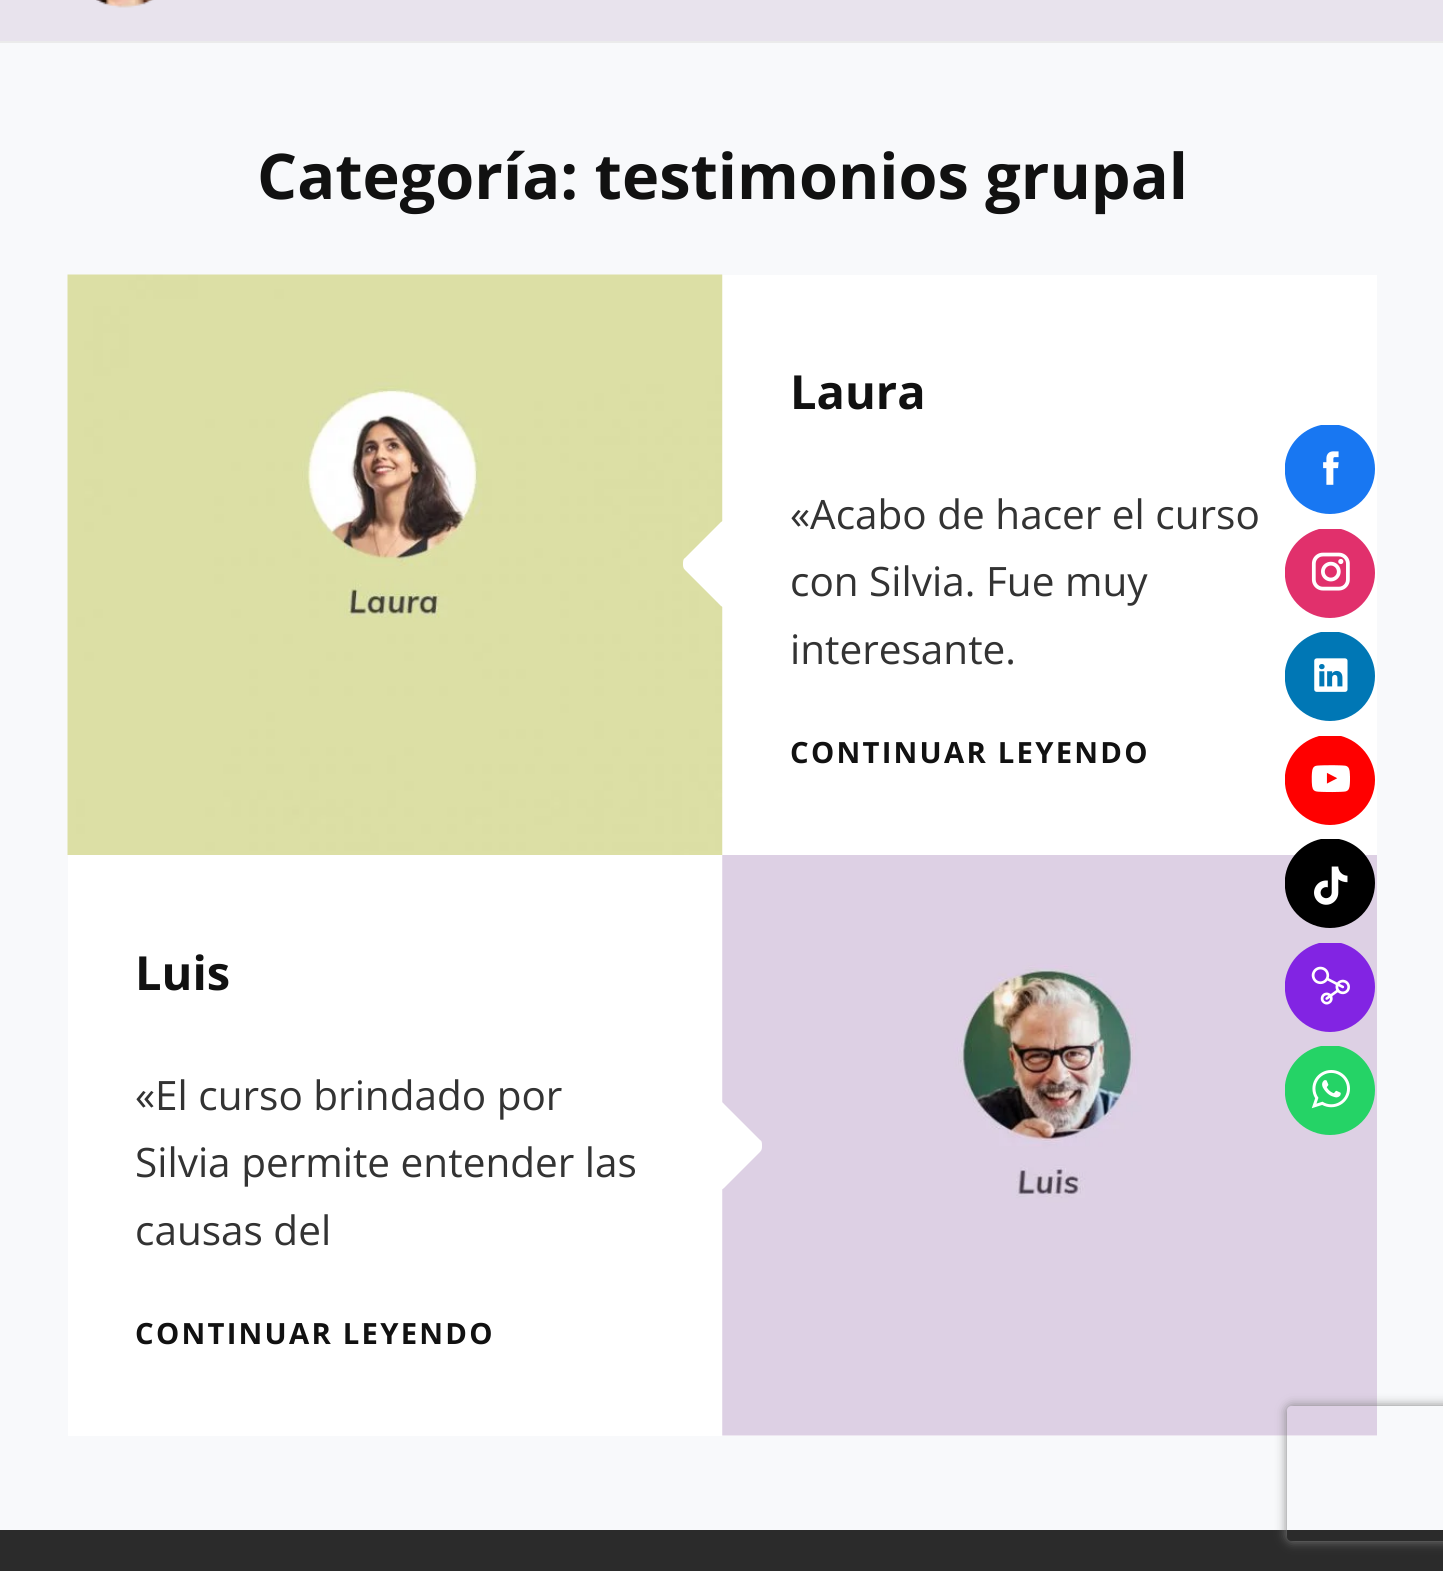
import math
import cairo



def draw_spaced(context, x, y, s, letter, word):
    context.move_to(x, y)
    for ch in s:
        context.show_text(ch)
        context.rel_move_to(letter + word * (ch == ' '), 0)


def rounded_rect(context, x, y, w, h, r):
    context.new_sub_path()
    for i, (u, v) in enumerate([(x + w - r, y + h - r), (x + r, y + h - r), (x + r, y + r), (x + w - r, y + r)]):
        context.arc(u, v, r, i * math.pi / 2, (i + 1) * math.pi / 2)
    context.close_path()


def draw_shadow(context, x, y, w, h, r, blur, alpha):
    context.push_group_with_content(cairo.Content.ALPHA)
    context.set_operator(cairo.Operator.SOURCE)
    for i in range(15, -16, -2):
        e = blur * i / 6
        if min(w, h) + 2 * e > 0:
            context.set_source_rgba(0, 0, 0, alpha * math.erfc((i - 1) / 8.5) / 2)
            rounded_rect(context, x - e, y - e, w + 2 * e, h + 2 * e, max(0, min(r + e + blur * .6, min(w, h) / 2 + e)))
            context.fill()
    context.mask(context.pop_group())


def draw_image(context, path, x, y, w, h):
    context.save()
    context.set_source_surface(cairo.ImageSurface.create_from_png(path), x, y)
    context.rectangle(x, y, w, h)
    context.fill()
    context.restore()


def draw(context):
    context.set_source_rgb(232 / 255, 227 / 255, 237 / 255)
    context.paint()
    draw_image(context, "images/1.png", 96, 0, 58, 8)
    context.set_source_rgb(248 / 255, 249 / 255, 251 / 255)
    context.rectangle(0, 43, 1443, 1487)
    context.fill()
    context.set_source_rgb(235 / 255, 235 / 255, 235 / 255)
    context.rectangle(0, 41, 1443, 2)
    context.fill()
    context.set_source_rgb(1, 1, 1)
    context.rectangle(722, 275, 655, 580)
    context.fill()
    draw_image(context, "images/2.png", 67, 274, 656, 581)
    context.new_path()
    context.move_to(685, 558)
    context.curve_to(683, 559, 683, 562, 683, 564)
    context.curve_to(683, 566, 683, 568, 685, 570)
    context.line_to(721, 606)
    context.curve_to(724, 608, 727, 609, 730, 608)
    context.curve_to(734, 606, 736, 603, 736, 599)
    context.line_to(736, 529)
    context.curve_to(736, 525, 734, 522, 730, 520)
    context.curve_to(727, 519, 724, 520, 721, 522)
    context.close_path()
    context.fill()
    context.rectangle(68, 855, 1309, 581)
    context.fill()
    draw_image(context, "images/3.png", 722, 855, 655, 581)
    context.new_path()
    context.move_to(760, 1152)
    context.curve_to(762, 1150, 762, 1148, 762, 1146)
    context.curve_to(762, 1143, 762, 1141, 760, 1140)
    context.line_to(724, 1104)
    context.curve_to(722, 1101, 718, 1101, 715, 1102)
    context.curve_to(711, 1104, 709, 1107, 709, 1110)
    context.line_to(709, 1181)
    context.curve_to(709, 1185, 711, 1188, 715, 1190)
    context.curve_to(718, 1191, 722, 1190, 724, 1188)
    context.close_path()
    context.fill()
    context.set_source_rgb(43 / 255, 43 / 255, 43 / 255)
    context.rectangle(0, 1530, 1443, 41)
    context.fill()
    context.set_source_rgb(24 / 255, 119 / 255, 242 / 255)
    context.new_path()
    context.move_to(1285, 464)
    context.curve_to(1287, 445, 1302, 429, 1321, 425)
    context.line_to(1339, 425)
    context.curve_to(1359, 429, 1375, 447, 1375, 469)
    context.curve_to(1375, 494, 1355, 514, 1330, 514)
    context.curve_to(1307, 514, 1287, 497, 1285, 474)
    context.close_path()
    context.fill()
    draw_image(context, "images/4.png", 1323, 451, 16, 34)
    context.set_source_rgb(225 / 255, 48 / 255, 108 / 255)
    context.new_path()
    context.move_to(1285, 568)
    context.curve_to(1287, 549, 1301, 534, 1319, 529)
    context.line_to(1341, 529)
    context.curve_to(1360, 534, 1375, 552, 1375, 573)
    context.curve_to(1375, 597, 1355, 618, 1330, 618)
    context.curve_to(1307, 618, 1287, 600, 1285, 577)
    context.close_path()
    context.fill()
    draw_image(context, "images/5.png", 1311, 552, 39, 39)
    context.set_source_rgb(0, 119 / 255, 181 / 255)
    context.new_path()
    context.move_to(1285, 671)
    context.curve_to(1287, 652, 1302, 636, 1321, 632)
    context.line_to(1339, 632)
    context.curve_to(1359, 636, 1375, 654, 1375, 676)
    context.curve_to(1375, 701, 1355, 721, 1330, 721)
    context.curve_to(1307, 721, 1287, 704, 1285, 681)
    context.close_path()
    context.fill()
    draw_image(context, "images/6.png", 1314, 658, 34, 34)
    context.set_source_rgb(1, 0, 0)
    context.new_path()
    context.move_to(1285, 775)
    context.curve_to(1287, 756, 1301, 741, 1319, 736)
    context.line_to(1341, 736)
    context.curve_to(1360, 741, 1375, 759, 1375, 780)
    context.curve_to(1375, 804, 1355, 825, 1330, 825)
    context.curve_to(1307, 825, 1287, 807, 1285, 784)
    context.close_path()
    context.fill()
    draw_image(context, "images/7.png", 1311, 765, 39, 28)
    context.set_source_rgb(0, 0, 0)
    context.new_path()
    context.move_to(1285, 878)
    context.curve_to(1287, 859, 1302, 843, 1321, 839)
    context.line_to(1339, 839)
    context.curve_to(1359, 843, 1375, 861, 1375, 883)
    context.curve_to(1375, 908, 1355, 928, 1330, 928)
    context.curve_to(1307, 928, 1287, 911, 1285, 888)
    context.close_path()
    context.fill()
    draw_image(context, "images/8.png", 1314, 866, 34, 39)
    context.set_source_rgb(130 / 255, 36 / 255, 227 / 255)
    context.new_path()
    context.move_to(1285, 982)
    context.curve_to(1287, 963, 1301, 948, 1319, 943)
    context.line_to(1341, 943)
    context.curve_to(1360, 948, 1375, 966, 1375, 987)
    context.curve_to(1375, 1011, 1355, 1032, 1330, 1032)
    context.curve_to(1307, 1032, 1287, 1014, 1285, 991)
    context.close_path()
    context.fill()
    draw_image(context, "images/9.png", 1311, 966, 39, 39)
    context.set_source_rgb(37 / 255, 211 / 255, 102 / 255)
    context.new_path()
    context.move_to(1285, 1085)
    context.curve_to(1287, 1066, 1302, 1050, 1321, 1046)
    context.line_to(1339, 1046)
    context.curve_to(1359, 1050, 1375, 1068, 1375, 1090)
    context.curve_to(1375, 1115, 1355, 1135, 1330, 1135)
    context.curve_to(1307, 1135, 1287, 1118, 1285, 1095)
    context.close_path()
    context.fill()
    draw_image(context, "images/10.png", 1311, 1070, 39, 39)
    context.save()
    context.set_fill_rule(cairo.FillRule.EVEN_ODD)
    context.new_path()
    context.move_to(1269, 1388)
    context.line_to(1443, 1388)
    context.line_to(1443, 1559)
    context.line_to(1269, 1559)
    context.close_path()
    context.move_to(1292, 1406)
    context.line_to(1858, 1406)
    context.curve_to(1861, 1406, 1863, 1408, 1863, 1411)
    context.line_to(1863, 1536)
    context.curve_to(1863, 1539, 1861, 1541, 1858, 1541)
    context.line_to(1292, 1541)
    context.curve_to(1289, 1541, 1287, 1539, 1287, 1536)
    context.line_to(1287, 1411)
    context.curve_to(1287, 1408, 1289, 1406, 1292, 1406)
    context.close_path()
    context.clip()
    context.set_source_rgb(128 / 255, 128 / 255, 128 / 255)
    draw_shadow(context, 1287, 1406, 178, 135, 5, 5.5, 1)
    context.restore()
    context.select_font_face("Open Sans", cairo.FontSlant.NORMAL, cairo.FontWeight.BOLD)
    context.set_font_size(63)
    context.set_source_rgb(17 / 255, 17 / 255, 17 / 255)
    context.move_to(257, 199)
    context.show_text("Categoría: testimonios grupal")
    context.set_font_size(47)
    context.move_to(790, 409)
    context.show_text("Laura")
    context.select_font_face("Open Sans")
    context.set_font_size(40.5)
    context.set_source_rgb(51 / 255, 51 / 255, 51 / 255)
    context.move_to(790, 529)
    context.show_text("«Acabo de hacer el curso")
    context.move_to(790, 596)
    context.show_text("con Silvia. Fue muy")
    context.move_to(790, 664)
    context.show_text("interesante.")
    context.select_font_face("Open Sans", cairo.FontSlant.NORMAL, cairo.FontWeight.BOLD)
    context.set_font_size(29.25)
    context.set_source_rgb(17 / 255, 17 / 255, 17 / 255)
    draw_spaced(context, 790, 763, "CONTINUAR LEYENDO", 2.25, 0)
    context.set_font_size(47)
    context.move_to(135, 990)
    context.show_text("Luis")
    context.select_font_face("Open Sans")
    context.set_font_size(40.5)
    context.set_source_rgb(51 / 255, 51 / 255, 51 / 255)
    context.move_to(135, 1110)
    context.show_text("«El curso brindado por")
    context.move_to(135, 1177)
    context.show_text("Silvia permite entender las")
    context.move_to(135, 1245)
    context.show_text("causas del")
    context.select_font_face("Open Sans", cairo.FontSlant.NORMAL, cairo.FontWeight.BOLD)
    context.set_font_size(29.25)
    context.set_source_rgb(17 / 255, 17 / 255, 17 / 255)
    draw_spaced(context, 135, 1344, "CONTINUAR LEYENDO", 2.25, 0)


surface = cairo.ImageSurface(cairo.Format.RGB24, 1443, 1571)
context = cairo.Context(surface)
options = cairo.FontOptions()
options.set_hint_metrics(cairo.HintMetrics.OFF)
options.set_hint_style(cairo.HintStyle.NONE)
context.set_font_options(options)
context.set_miter_limit(4)
draw(context)
surface.write_to_png("out.png")
